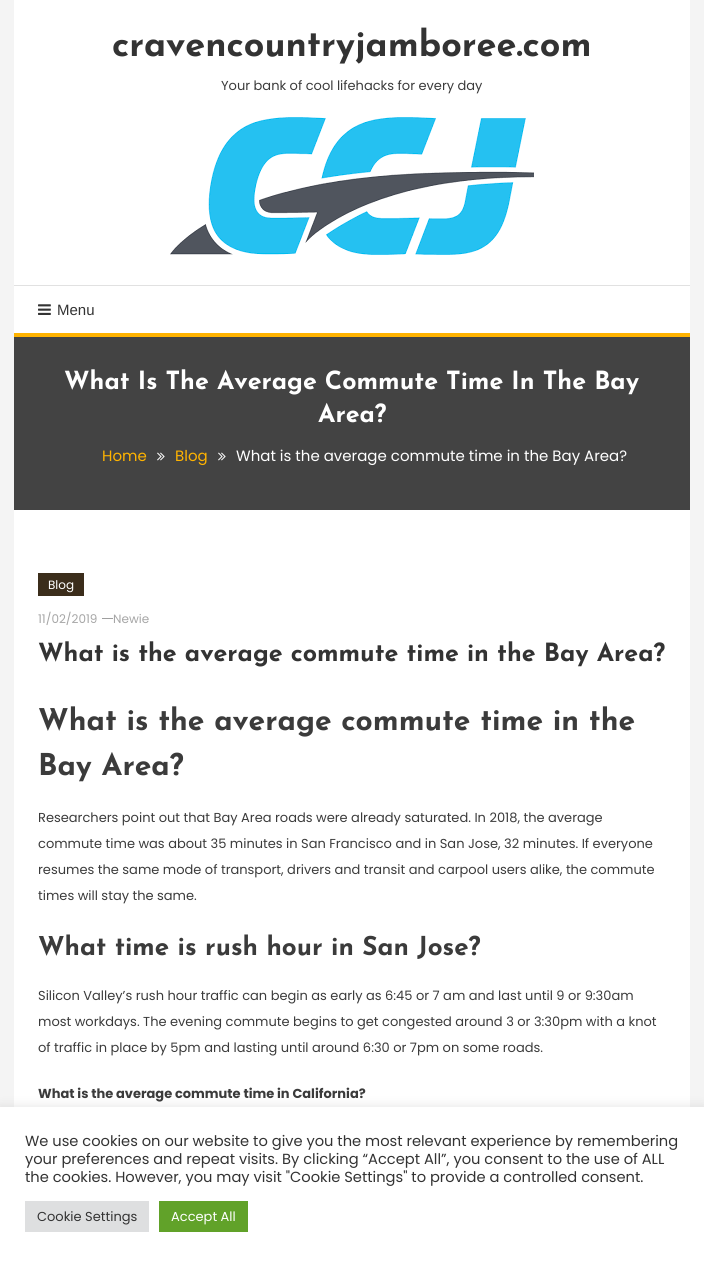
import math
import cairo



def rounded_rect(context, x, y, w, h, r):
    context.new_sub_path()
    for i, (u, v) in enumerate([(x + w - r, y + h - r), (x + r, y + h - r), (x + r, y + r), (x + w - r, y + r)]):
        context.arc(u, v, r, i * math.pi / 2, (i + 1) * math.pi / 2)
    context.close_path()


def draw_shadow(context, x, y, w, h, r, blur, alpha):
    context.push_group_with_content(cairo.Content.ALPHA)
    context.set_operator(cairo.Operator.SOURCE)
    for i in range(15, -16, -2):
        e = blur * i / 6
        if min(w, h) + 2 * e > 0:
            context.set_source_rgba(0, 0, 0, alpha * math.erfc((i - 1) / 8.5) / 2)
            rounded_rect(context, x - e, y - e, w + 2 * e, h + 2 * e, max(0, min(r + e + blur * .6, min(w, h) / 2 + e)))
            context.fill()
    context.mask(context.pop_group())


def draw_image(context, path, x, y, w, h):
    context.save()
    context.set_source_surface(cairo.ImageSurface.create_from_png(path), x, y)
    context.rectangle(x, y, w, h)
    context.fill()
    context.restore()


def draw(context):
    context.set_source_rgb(244 / 255, 244 / 255, 244 / 255)
    context.paint()
    context.set_source_rgb(1, 1, 1)
    context.rectangle(14, 0, 676, 1107)
    context.fill()
    draw_image(context, "images/1.png", 170, 117, 364, 138)
    context.set_source_rgb(225 / 255, 225 / 255, 225 / 255)
    context.rectangle(14, 285, 676, 1)
    context.fill()
    draw_image(context, "images/2.png", 38, 304, 13, 11)
    context.set_source_rgb(67 / 255, 67 / 255, 67 / 255)
    context.rectangle(14, 337, 676, 173)
    context.fill()
    context.set_source_rgb(1, 179 / 255, 0)
    context.rectangle(14, 333, 676, 4)
    context.fill()
    draw_image(context, "images/3.png", 157, 452, 8, 9)
    draw_image(context, "images/3.png", 218, 452, 8, 9)
    context.set_source_rgb(59 / 255, 45 / 255, 27 / 255)
    context.rectangle(38, 573, 46, 23)
    context.fill()
    context.set_source_rgb(159 / 255, 159 / 255, 159 / 255)
    context.rectangle(102, 618, 11, 1)
    context.fill()
    context.set_source_rgb(172 / 255, 171 / 255, 171 / 255)
    draw_shadow(context, 0, 1106, 704, 155, 0, 5, 0.3)
    context.set_source_rgb(1, 1, 1)
    context.rectangle(0, 1107, 704, 155)
    context.fill()
    context.set_source_rgb(222 / 255, 223 / 255, 224 / 255)
    context.rectangle(25, 1201, 124, 31)
    context.fill()
    context.set_source_rgb(97 / 255, 162 / 255, 41 / 255)
    context.rectangle(159, 1201, 89, 31)
    context.fill()
    context.select_font_face("Josefin Sans", cairo.FontSlant.NORMAL, cairo.FontWeight.BOLD)
    context.set_font_size(36)
    context.set_source_rgb(51 / 255, 51 / 255, 51 / 255)
    context.move_to(112, 56)
    context.show_text("cravencountryjamboree.com")
    context.select_font_face("Poppins")
    context.set_font_size(13)
    context.set_source_rgb(59 / 255, 59 / 255, 59 / 255)
    context.move_to(221, 90)
    context.show_text("Your bank of cool lifehacks for every day")
    context.select_font_face("Liberation Sans")
    context.set_font_size(15)
    context.set_source_rgb(51 / 255, 51 / 255, 51 / 255)
    context.move_to(57, 315)
    context.show_text("Menu")
    context.select_font_face("Josefin Sans", cairo.FontSlant.NORMAL, cairo.FontWeight.BOLD)
    context.set_font_size(25)
    context.set_source_rgb(1, 1, 1)
    context.move_to(64, 389)
    context.show_text("What Is The Average Commute Time In The Bay")
    context.move_to(318, 422)
    context.show_text("Area?")
    context.select_font_face("Poppins")
    context.set_font_size(15)
    context.set_source_rgb(1, 179 / 255, 0)
    context.move_to(102, 461)
    context.show_text("Home")
    context.move_to(175, 461)
    context.show_text("Blog")
    context.set_source_rgb(1, 1, 1)
    context.move_to(236, 461)
    context.show_text("What is the average commute time in the Bay Area?")
    context.set_font_size(12)
    context.move_to(48, 589)
    context.show_text("Blog")
    context.set_source_rgb(166 / 255, 166 / 255, 166 / 255)
    context.move_to(38, 623)
    context.show_text("11/02/2019")
    context.move_to(113, 623)
    context.show_text("Newie")
    context.select_font_face("Josefin Sans", cairo.FontSlant.NORMAL, cairo.FontWeight.BOLD)
    context.set_font_size(25)
    context.set_source_rgb(51 / 255, 51 / 255, 51 / 255)
    context.move_to(38, 661)
    context.show_text("What is the average commute time in the Bay Area?")
    context.set_font_size(30)
    context.set_source_rgb(59 / 255, 59 / 255, 59 / 255)
    context.move_to(38, 730)
    context.show_text("What is the average commute time in the")
    context.move_to(38, 775)
    context.show_text("Bay Area?")
    context.select_font_face("Poppins")
    context.set_font_size(13)
    context.move_to(38, 822)
    context.show_text("Researchers point out that Bay Area roads were already saturated. In 2018, the average")
    context.move_to(38, 848)
    context.show_text("commute time was about 35 minutes in San Francisco and in San Jose, 32 minutes. If everyone")
    context.move_to(38, 874)
    context.show_text("resumes the same mode of transport, drivers and transit and carpool users alike, the commute")
    context.move_to(38, 900)
    context.show_text("times will stay the same.")
    context.select_font_face("Josefin Sans", cairo.FontSlant.NORMAL, cairo.FontWeight.BOLD)
    context.set_font_size(26)
    context.move_to(38, 955)
    context.show_text("What time is rush hour in San Jose?")
    context.select_font_face("Poppins")
    context.set_font_size(13)
    context.move_to(38, 1000)
    context.show_text("Silicon Valley’s rush hour traffic can begin as early as 6:45 or 7 am and last until 9 or 9:30am")
    context.move_to(38, 1026)
    context.show_text("most workdays. The evening commute begins to get congested around 3 or 3:30pm with a knot")
    context.move_to(38, 1052)
    context.show_text("of traffic in place by 5pm and lasting until around 6:30 or 7pm on some roads.")
    context.select_font_face("Poppins", cairo.FontSlant.NORMAL, cairo.FontWeight.BOLD)
    context.move_to(38, 1098)
    context.show_text("What is the average commute time in California?")
    context.select_font_face("Poppins")
    context.set_font_size(14.65)
    context.set_source_rgb(51 / 255, 51 / 255, 51 / 255)
    context.move_to(25, 1146)
    context.show_text("We use cookies on our website to give you the most relevant experience by remembering")
    context.move_to(25, 1164)
    context.show_text("your preferences and repeat visits. By clicking “Accept All”, you consent to the use of ALL")
    context.move_to(25, 1182)
    context.show_text("the cookies. However, you may visit \"Cookie Settings\" to provide a controlled consent.")
    context.set_font_size(13)
    context.move_to(37, 1221)
    context.show_text("Cookie Settings")
    context.set_source_rgb(1, 1, 1)
    context.move_to(171, 1221)
    context.show_text("Accept All")


surface = cairo.ImageSurface(cairo.Format.RGB24, 704, 1262)
context = cairo.Context(surface)
options = cairo.FontOptions()
options.set_hint_metrics(cairo.HintMetrics.OFF)
options.set_hint_style(cairo.HintStyle.NONE)
context.set_font_options(options)
context.set_miter_limit(4)
draw(context)
surface.write_to_png("out.png")
